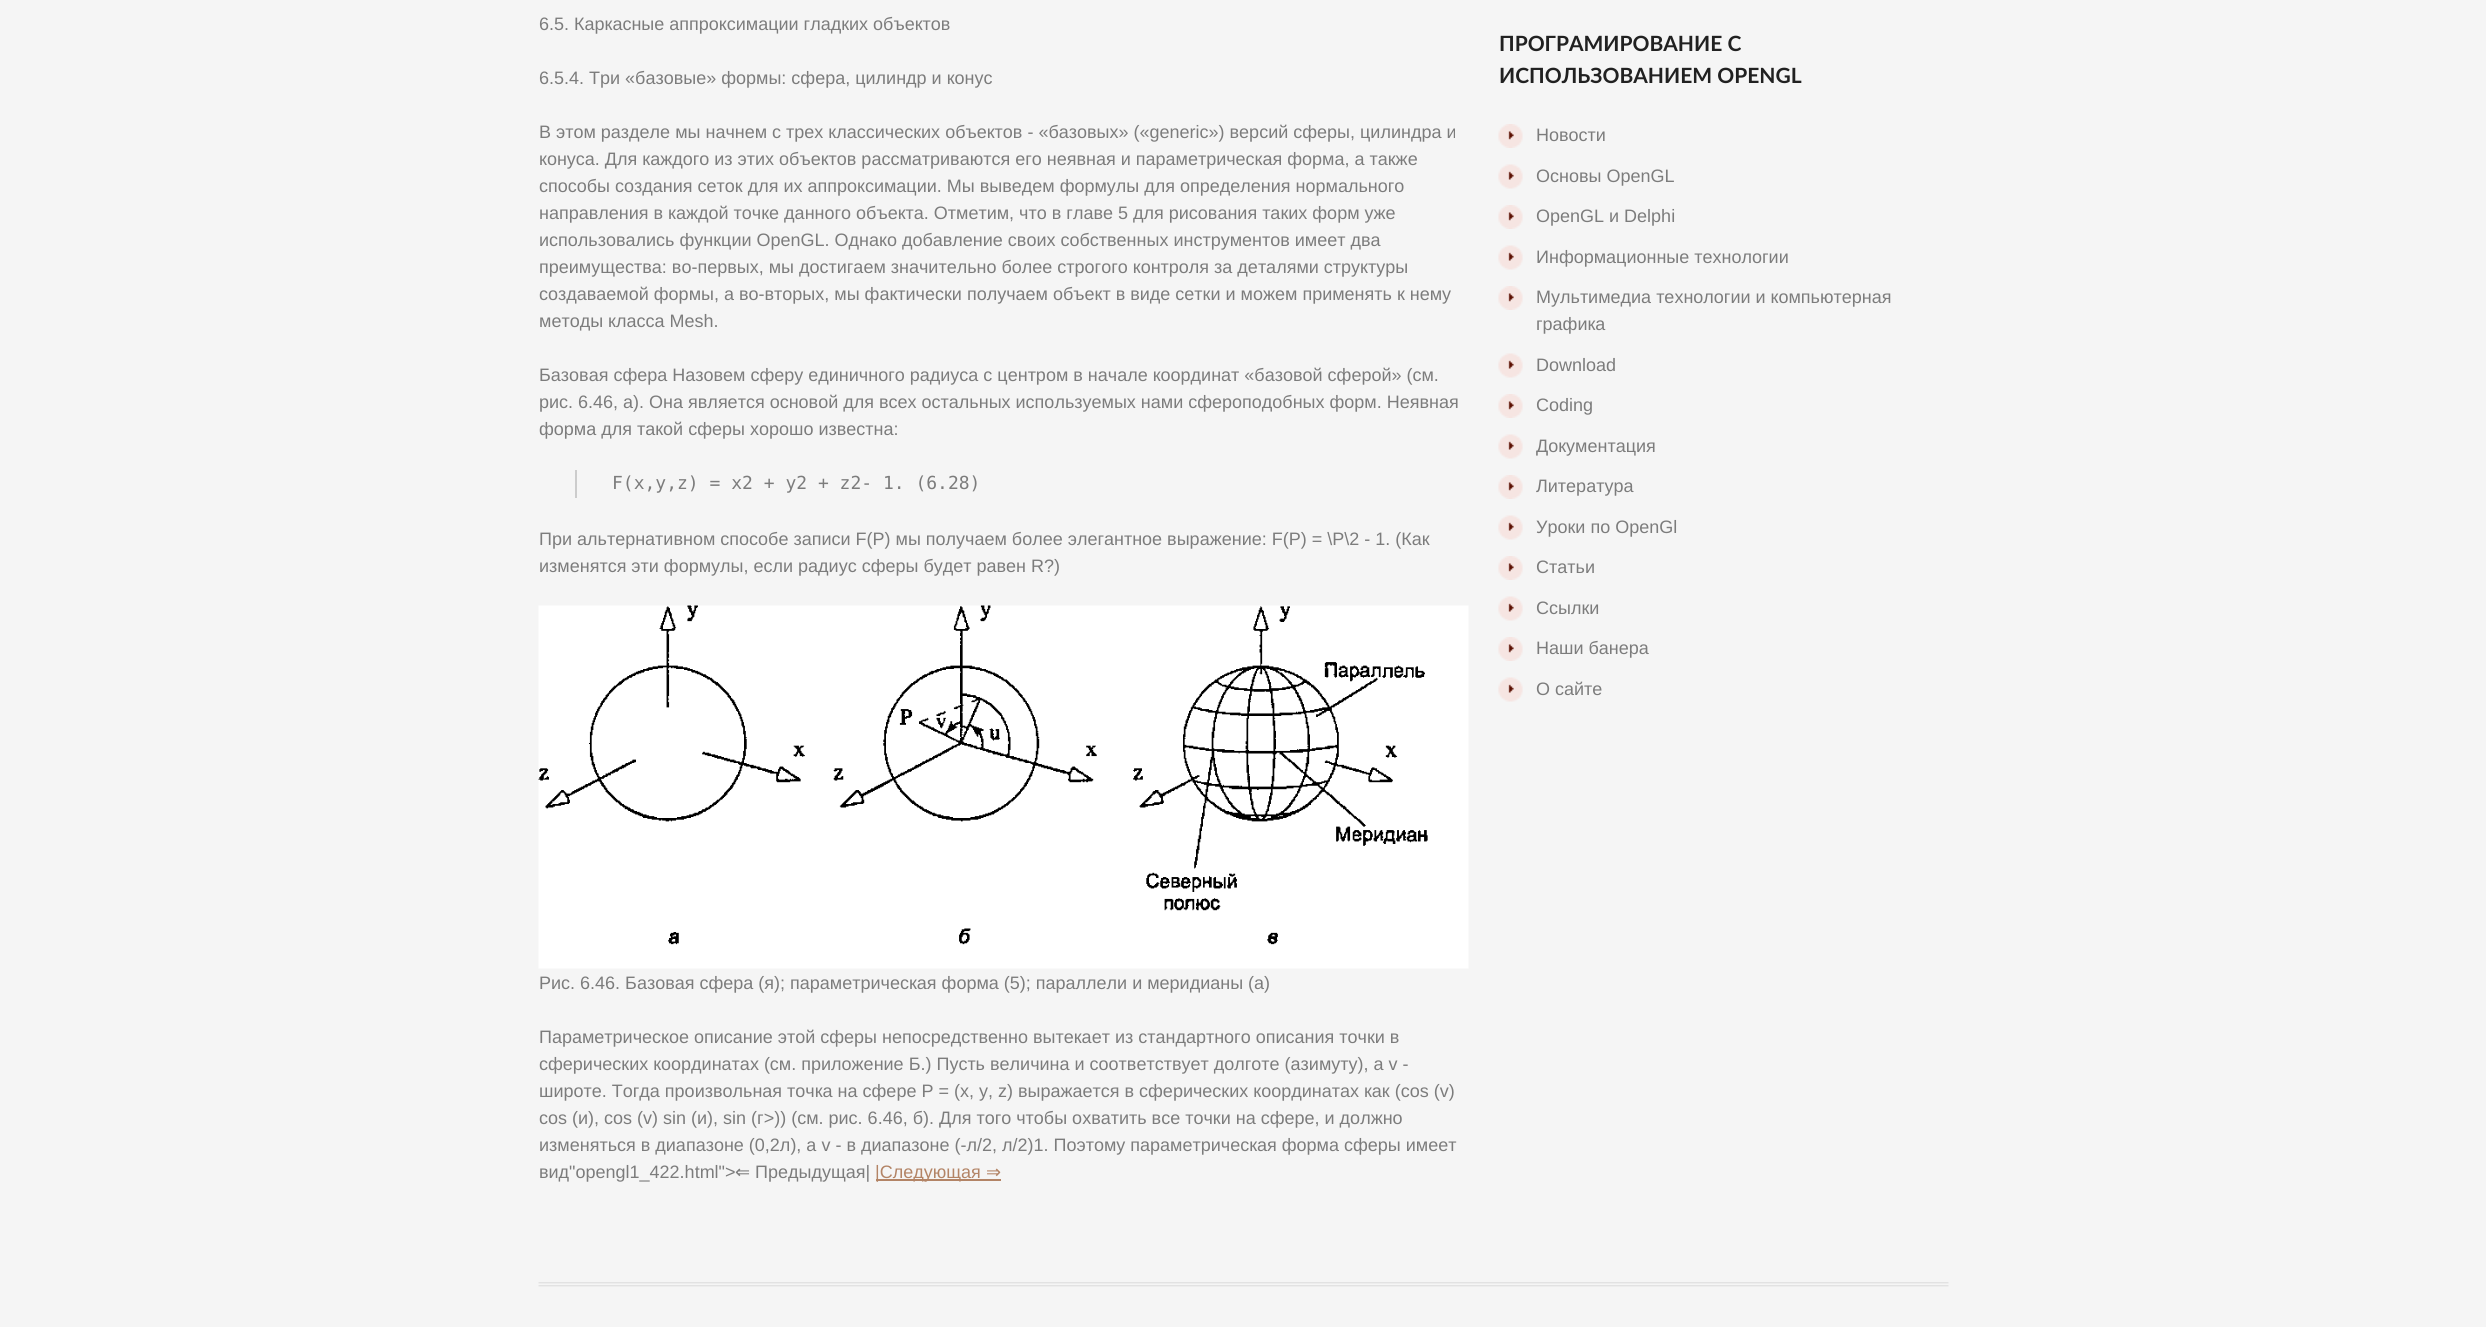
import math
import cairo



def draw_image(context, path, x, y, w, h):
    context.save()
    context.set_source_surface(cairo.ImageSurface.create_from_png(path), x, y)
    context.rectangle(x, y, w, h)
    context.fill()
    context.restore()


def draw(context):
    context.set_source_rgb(245 / 255, 245 / 255, 245 / 255)
    context.paint()
    context.set_source_rgb(204 / 255, 204 / 255, 204 / 255)
    context.rectangle(575, 470, 2, 28)
    context.fill()
    draw_image(context, "images/1.png", 538, 605, 931, 364)
    context.set_source_rgb(179 / 255, 132 / 255, 102 / 255)
    context.rectangle(876, 1179, 125, 2)
    context.fill()
    draw_image(context, "images/2.png", 1498, 124, 25, 24)
    draw_image(context, "images/3.png", 1498, 164, 25, 25)
    draw_image(context, "images/2.png", 1498, 205, 25, 24)
    draw_image(context, "images/3.png", 1498, 245, 25, 25)
    draw_image(context, "images/2.png", 1498, 286, 25, 24)
    draw_image(context, "images/3.png", 1498, 353, 25, 25)
    draw_image(context, "images/2.png", 1498, 394, 25, 24)
    draw_image(context, "images/3.png", 1498, 434, 25, 25)
    draw_image(context, "images/2.png", 1498, 475, 25, 24)
    draw_image(context, "images/3.png", 1498, 515, 25, 25)
    draw_image(context, "images/2.png", 1498, 556, 25, 24)
    draw_image(context, "images/3.png", 1498, 596, 25, 25)
    draw_image(context, "images/2.png", 1498, 637, 25, 24)
    draw_image(context, "images/3.png", 1498, 677, 25, 25)
    draw_image(context, "images/4.png", 538, 1282, 1411, 2)
    draw_image(context, "images/4.png", 538, 1285, 1411, 2)
    context.select_font_face("Liberation Sans")
    context.set_font_size(18)
    context.set_source_rgb(124 / 255, 124 / 255, 124 / 255)
    context.move_to(539, 30)
    context.show_text("6.5. Каркасные аппроксимации гладких объектов")
    context.move_to(539, 84)
    context.show_text("6.5.4. Три «базовые» формы: сфера, цилиндр и конус")
    context.move_to(539, 138)
    context.show_text("В этом разделе мы начнем с трех классических объектов - «базовых» («generic») версий сферы, цилиндра и")
    context.move_to(539, 165)
    context.show_text("конуса. Для каждого из этих объектов рассматриваются его неявная и параметрическая форма, а также")
    context.move_to(539, 192)
    context.show_text("способы создания сеток для их аппроксимации. Мы выведем формулы для определения нормального")
    context.move_to(539, 219)
    context.show_text("направления в каждой точке данного объекта. Отметим, что в главе 5 для рисования таких форм уже")
    context.move_to(539, 246)
    context.show_text("использовались функции OpenGL. Однако добавление своих собственных инструментов имеет два")
    context.move_to(539, 273)
    context.show_text("преимущества: во-первых, мы достигаем значительно более строгого контроля за деталями структуры")
    context.move_to(539, 300)
    context.show_text("создаваемой формы, а во-вторых, мы фактически получаем объект в виде сетки и можем применять к нему")
    context.move_to(539, 327)
    context.show_text("методы класса Mesh.")
    context.move_to(539, 381)
    context.show_text("Базовая сфера Назовем сферу единичного радиуса с центром в начале координат «базовой сферой» (см.")
    context.move_to(539, 408)
    context.show_text("рис. 6.46, а). Она является основой для всех остальных используемых нами сфероподобных форм. Неявная")
    context.move_to(539, 435)
    context.show_text("форма для такой сферы хорошо известна:")
    context.select_font_face("DejaVu Sans Mono")
    context.move_to(612, 489)
    context.show_text("F(x,y,z) = x2 + y2 + z2- 1. (6.28)")
    context.select_font_face("Liberation Sans")
    context.move_to(539, 545)
    context.show_text("При альтернативном способе записи F(Р) мы получаем более элегантное выражение: F(P) = \\Р\\2 - 1. (Как")
    context.move_to(539, 572)
    context.show_text("изменятся эти формулы, если радиус сферы будет равен R?)")
    context.move_to(539, 989)
    context.show_text("Рис. 6.46. Базовая сфера (я); параметрическая форма (5); параллели и меридианы (а)")
    context.move_to(539, 1043)
    context.show_text("Параметрическое описание этой сферы непосредственно вытекает из стандартного описания точки в")
    context.move_to(539, 1070)
    context.show_text("сферических координатах (см. приложение Б.) Пусть величина и соответствует долготе (азимуту), a v -")
    context.move_to(539, 1097)
    context.show_text("широте. Тогда произвольная точка на сфере Р = (х, у, z) выражается в сферических координатах как (cos (v)")
    context.move_to(539, 1124)
    context.show_text("cos (и), cos (v) sin (и), sin (г>)) (см. рис. 6.46, б). Для того чтобы охватить все точки на сфере, и должно")
    context.move_to(539, 1151)
    context.show_text("изменяться в диапазоне (0,2л), a v - в диапазоне (-л/2, л/2)1. Поэтому параметрическая форма сферы имеет")
    context.move_to(539, 1178)
    context.show_text("вид\"opengl1_422.html\">")
    context.select_font_face("DejaVu Sans")
    context.move_to(735, 1178)
    context.show_text("⇐")
    context.select_font_face("Liberation Sans")
    context.move_to(755, 1178)
    context.show_text("Предыдущая|")
    context.set_source_rgb(179 / 255, 132 / 255, 102 / 255)
    context.move_to(875, 1178)
    context.show_text("|Следующая")
    context.select_font_face("DejaVu Sans")
    context.move_to(986, 1178)
    context.show_text("⇒")
    context.select_font_face("Lato", cairo.FontSlant.NORMAL, cairo.FontWeight.BOLD)
    context.set_font_size(21)
    context.set_source_rgb(33 / 255, 33 / 255, 33 / 255)
    context.move_to(1499, 51)
    context.show_text("ПРОГРАМИРОВАНИЕ С")
    context.move_to(1499, 83)
    context.show_text("ИСПОЛЬЗОВАНИЕМ OPENGL")
    context.select_font_face("Liberation Sans")
    context.set_font_size(18)
    context.set_source_rgb(124 / 255, 124 / 255, 124 / 255)
    context.move_to(1536, 141)
    context.show_text("Новости")
    context.move_to(1536, 182)
    context.show_text("Основы OpenGL")
    context.move_to(1536, 222)
    context.show_text("OpenGL и Delphi")
    context.move_to(1536, 263)
    context.show_text("Информационные технологии")
    context.move_to(1536, 303)
    context.show_text("Мультимедиа технологии и компьютерная")
    context.move_to(1536, 330)
    context.show_text("графика")
    context.move_to(1536, 371)
    context.show_text("Download")
    context.move_to(1536, 411)
    context.show_text("Coding")
    context.move_to(1536, 452)
    context.show_text("Документация")
    context.move_to(1536, 492)
    context.show_text("Литература")
    context.move_to(1536, 533)
    context.show_text("Уроки по OpenGl")
    context.move_to(1536, 573)
    context.show_text("Статьи")
    context.move_to(1536, 614)
    context.show_text("Ссылки")
    context.move_to(1536, 654)
    context.show_text("Наши банера")
    context.move_to(1536, 695)
    context.show_text("О сайте")


surface = cairo.ImageSurface(cairo.Format.RGB24, 2486, 1327)
context = cairo.Context(surface)
options = cairo.FontOptions()
options.set_hint_metrics(cairo.HintMetrics.OFF)
options.set_hint_style(cairo.HintStyle.NONE)
context.set_font_options(options)
context.set_miter_limit(4)
draw(context)
surface.write_to_png("out.png")
